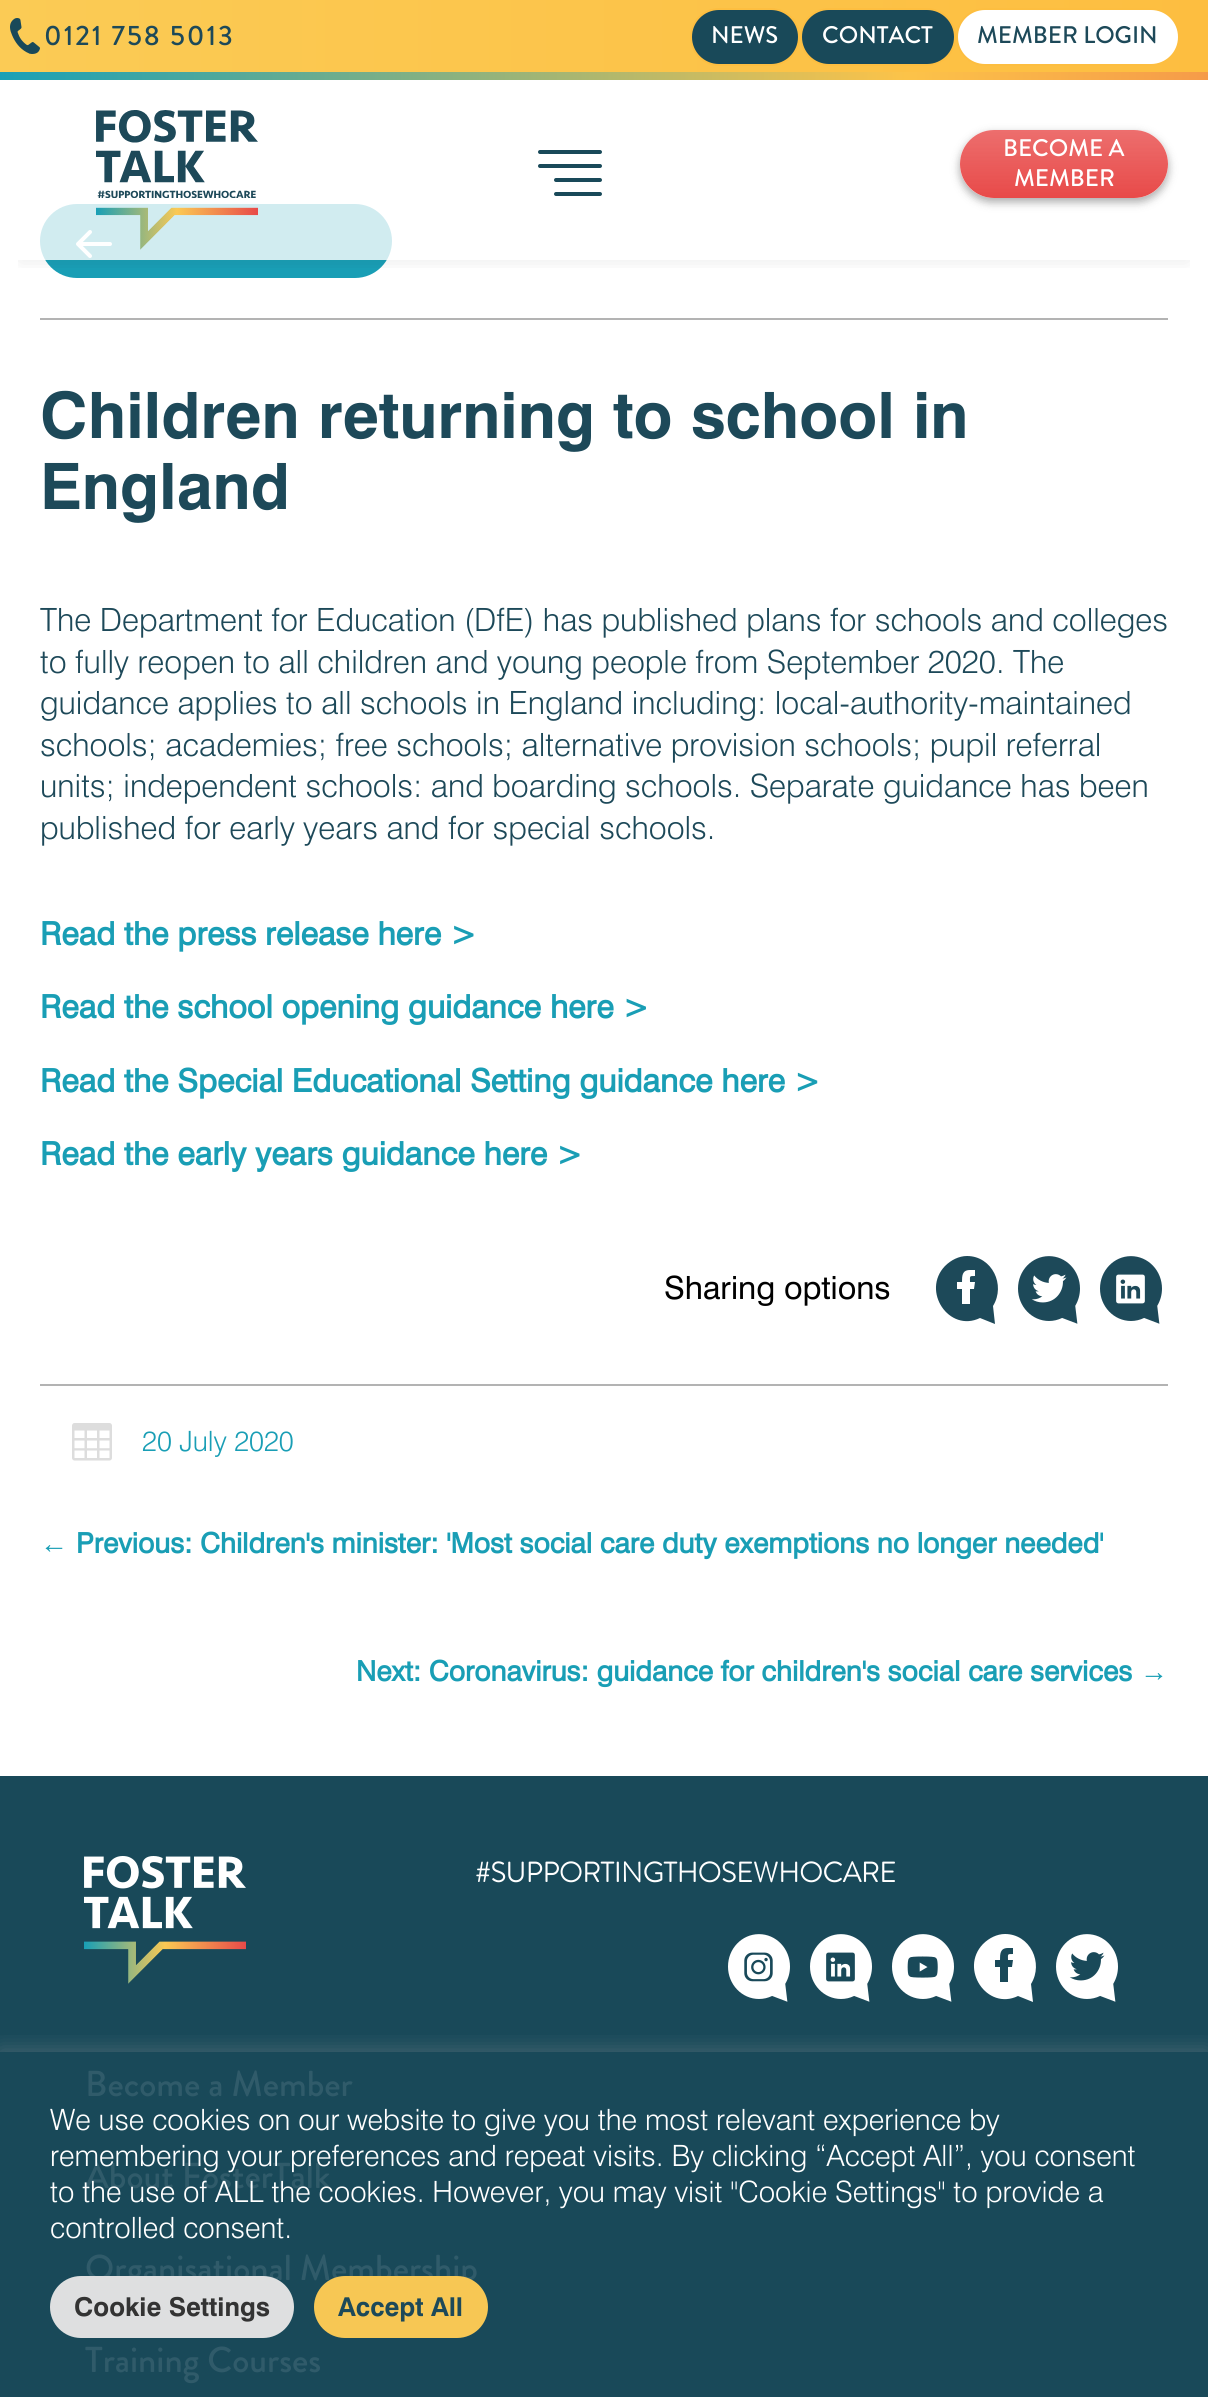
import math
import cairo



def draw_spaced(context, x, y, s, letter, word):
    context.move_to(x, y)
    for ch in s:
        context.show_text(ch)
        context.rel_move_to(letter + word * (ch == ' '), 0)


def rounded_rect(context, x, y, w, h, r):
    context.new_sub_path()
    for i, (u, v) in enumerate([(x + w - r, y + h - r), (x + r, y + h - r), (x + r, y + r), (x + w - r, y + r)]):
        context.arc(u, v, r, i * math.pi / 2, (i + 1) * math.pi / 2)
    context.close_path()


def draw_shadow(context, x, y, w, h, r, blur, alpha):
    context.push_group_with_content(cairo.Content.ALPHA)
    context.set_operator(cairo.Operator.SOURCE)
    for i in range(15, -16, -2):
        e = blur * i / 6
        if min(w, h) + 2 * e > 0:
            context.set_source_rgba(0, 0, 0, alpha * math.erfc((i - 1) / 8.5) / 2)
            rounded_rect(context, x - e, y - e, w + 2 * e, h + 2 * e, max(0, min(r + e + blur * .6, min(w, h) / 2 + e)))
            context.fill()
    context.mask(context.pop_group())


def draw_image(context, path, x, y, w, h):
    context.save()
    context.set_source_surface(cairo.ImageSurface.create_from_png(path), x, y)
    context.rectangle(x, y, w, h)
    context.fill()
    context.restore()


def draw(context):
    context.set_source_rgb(1, 1, 1)
    context.paint()
    gradient = cairo.LinearGradient(0, 36, 1208, 36)
    gradient.add_color_stop_rgba(0, 251 / 255, 203 / 255, 85 / 255, 1)
    gradient.add_color_stop_rgba(1, 253 / 255, 190 / 255, 64 / 255, 1)
    context.set_source(gradient)
    context.rectangle(0, 0, 1208, 72)
    context.fill()
    draw_image(context, "images/1.png", 10, 18, 30, 36)
    context.set_source_rgb(25 / 255, 73 / 255, 89 / 255)
    rounded_rect(context, 691, 9, 108, 56, 28)
    context.fill_preserve()
    context.set_source_rgb(253 / 255, 190 / 255, 64 / 255)
    context.stroke()
    context.set_source_rgb(25 / 255, 73 / 255, 89 / 255)
    rounded_rect(context, 801, 9, 154, 56, 28)
    context.fill_preserve()
    context.set_source_rgb(253 / 255, 190 / 255, 64 / 255)
    context.stroke()
    context.set_source_rgb(1, 1, 1)
    rounded_rect(context, 957, 9, 222, 56, 28)
    context.fill_preserve()
    context.set_source_rgb(253 / 255, 190 / 255, 64 / 255)
    context.stroke()
    gradient = cairo.LinearGradient(0, 78, 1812, 78)
    gradient.add_color_stop_rgba(0, 25 / 255, 160 / 255, 182 / 255, 1)
    gradient.add_color_stop_rgba(0.5, 252 / 255, 195 / 255, 73 / 255, 1)
    gradient.add_color_stop_rgba(1, 232 / 255, 75 / 255, 73 / 255, 1)
    context.set_source(gradient)
    context.rectangle(0, 72, 1208, 8)
    context.fill()
    context.set_source_rgb(25 / 255, 158 / 255, 181 / 255)
    rounded_rect(context, 40, 204, 352, 74, 37)
    context.fill()
    context.new_path()
    context.move_to(110, 244)
    context.line_to(78, 244)
    context.move_to(90, 256)
    context.line_to(78, 244)
    context.line_to(90, 232)
    context.set_source_rgb(1, 1, 1)
    context.set_line_width(4)
    context.set_line_cap(cairo.LineCap.ROUND)
    context.set_line_join(cairo.LineJoin.ROUND)
    context.stroke()
    context.save()
    context.rectangle(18, 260, 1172, 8)
    context.clip()
    context.set_source_rgb(33 / 255, 35 / 255, 38 / 255)
    draw_shadow(context, 20, 120, 1168, 140, 0, 10, 0.1)
    context.restore()
    context.set_source_rgba(1, 1, 1, 0.8)
    context.rectangle(40, 204, 352, 56)
    context.fill()
    draw_image(context, "images/2.png", 96, 110, 162, 140)
    context.set_source_rgb(25 / 255, 73 / 255, 89 / 255)
    rounded_rect(context, 538, 150, 64, 4, 2)
    context.fill()
    rounded_rect(context, 538, 164, 64, 4, 2)
    context.fill()
    rounded_rect(context, 554, 178, 48, 4, 2)
    context.fill()
    rounded_rect(context, 554, 192, 48, 4, 2)
    context.fill()
    context.save()
    context.set_fill_rule(cairo.FillRule.EVEN_ODD)
    context.new_path()
    context.move_to(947, 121)
    context.line_to(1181, 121)
    context.line_to(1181, 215)
    context.line_to(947, 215)
    context.close_path()
    context.move_to(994, 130)
    context.line_to(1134, 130)
    context.curve_to(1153, 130, 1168, 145, 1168, 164)
    context.curve_to(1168, 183, 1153, 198, 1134, 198)
    context.line_to(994, 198)
    context.curve_to(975, 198, 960, 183, 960, 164)
    context.curve_to(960, 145, 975, 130, 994, 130)
    context.close_path()
    context.clip()
    context.set_source_rgb(0, 0, 0)
    draw_shadow(context, 960, 134, 208, 68, 34, 4, 0.24)
    context.restore()
    context.save()
    context.set_fill_rule(cairo.FillRule.EVEN_ODD)
    context.new_path()
    context.move_to(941, 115)
    context.line_to(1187, 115)
    context.line_to(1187, 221)
    context.line_to(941, 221)
    context.close_path()
    context.move_to(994, 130)
    context.line_to(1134, 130)
    context.curve_to(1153, 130, 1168, 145, 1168, 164)
    context.curve_to(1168, 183, 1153, 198, 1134, 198)
    context.line_to(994, 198)
    context.curve_to(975, 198, 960, 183, 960, 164)
    context.curve_to(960, 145, 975, 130, 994, 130)
    context.close_path()
    context.clip()
    context.set_source_rgb(0, 0, 0)
    draw_shadow(context, 960, 134, 208, 68, 34, 6, 0.12)
    context.restore()
    gradient = cairo.LinearGradient(1064, 198, 1064, 130)
    gradient.add_color_stop_rgba(0, 232 / 255, 74 / 255, 73 / 255, 1)
    gradient.add_color_stop_rgba(1, 232 / 255, 74 / 255, 73 / 255, 0.8)
    context.set_source(gradient)
    rounded_rect(context, 960, 130, 208, 68, 34)
    context.fill()
    context.set_source_rgb(179 / 255, 179 / 255, 179 / 255)
    context.rectangle(40, 318, 1128, 2)
    context.fill()
    context.set_source_rgb(29 / 255, 73 / 255, 89 / 255)
    context.new_path()
    context.move_to(967, 1256)
    context.curve_to(959, 1256, 951, 1260, 945, 1266)
    context.curve_to(921, 1291, 949, 1333, 980, 1318)
    context.line_to(995, 1324)
    context.line_to(993, 1306)
    context.curve_to(1006, 1285, 992, 1256, 967, 1256)
    context.close_path()
    context.move_to(995, 1324)
    context.line_to(996, 1324)
    context.close_path()
    context.move_to(975, 1270)
    context.line_to(975, 1276)
    context.curve_to(969, 1276, 970, 1276, 970, 1282)
    context.line_to(975, 1282)
    context.line_to(974, 1289)
    context.line_to(970, 1289)
    context.line_to(970, 1304)
    context.line_to(962, 1304)
    context.line_to(962, 1289)
    context.line_to(957, 1289)
    context.line_to(957, 1282)
    context.line_to(962, 1282)
    context.curve_to(962, 1276, 962, 1270, 970, 1270)
    context.close_path()
    context.fill()
    draw_image(context, "images/3.png", 1018, 1256, 62, 68)
    draw_image(context, "images/4.png", 1100, 1256, 62, 68)
    context.set_source_rgb(179 / 255, 179 / 255, 179 / 255)
    context.rectangle(40, 1384, 1128, 2)
    context.fill()
    draw_image(context, "images/5.png", 72, 1423, 40, 38)
    context.set_source_rgb(25 / 255, 73 / 255, 89 / 255)
    context.rectangle(0, 1776, 1208, 621)
    context.fill()
    draw_image(context, "images/6.png", 84, 1856, 162, 128)
    draw_image(context, "images/7.png", 728, 1934, 62, 68)
    draw_image(context, "images/8.png", 810, 1934, 62, 68)
    draw_image(context, "images/9.png", 892, 1934, 62, 68)
    context.set_source_rgb(1, 1, 1)
    context.new_path()
    context.move_to(1005, 1934)
    context.curve_to(997, 1934, 989, 1938, 983, 1944)
    context.curve_to(959, 1969, 987, 2011, 1018, 1996)
    context.line_to(1033, 2002)
    context.line_to(1031, 1984)
    context.curve_to(1044, 1963, 1030, 1934, 1005, 1934)
    context.close_path()
    context.move_to(1033, 2002)
    context.line_to(1034, 2002)
    context.close_path()
    context.move_to(1013, 1948)
    context.line_to(1013, 1954)
    context.curve_to(1007, 1954, 1008, 1954, 1008, 1960)
    context.line_to(1013, 1960)
    context.line_to(1012, 1967)
    context.line_to(1008, 1967)
    context.line_to(1008, 1982)
    context.line_to(1000, 1982)
    context.line_to(1000, 1967)
    context.line_to(995, 1967)
    context.line_to(995, 1960)
    context.line_to(1000, 1960)
    context.curve_to(1000, 1954, 1000, 1948, 1008, 1948)
    context.close_path()
    context.fill()
    draw_image(context, "images/10.png", 1056, 1934, 62, 68)
    context.save()
    context.rectangle(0, 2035, 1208, 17)
    context.clip()
    context.set_source_rgb(172 / 255, 171 / 255, 171 / 255)
    draw_shadow(context, 0, 2050, 1208, 346, 0, 10, 0.3)
    context.restore()
    context.select_font_face("Brandon Grotesque Medium")
    context.set_font_size(28)
    context.set_source_rgb(29 / 255, 73 / 255, 89 / 255)
    draw_spaced(context, 44, 45, "0121 758 5013", 2, 0)
    context.set_font_size(24)
    context.set_source_rgb(1, 1, 1)
    context.move_to(711, 43)
    context.show_text("NEWS")
    context.move_to(822, 43)
    context.show_text("CONTACT")
    context.set_source_rgb(29 / 255, 73 / 255, 89 / 255)
    context.move_to(977, 43)
    context.show_text("MEMBER LOGIN")
    context.set_source_rgb(1, 1, 1)
    context.move_to(1003, 156)
    context.show_text("BECOME A")
    context.move_to(1014, 186)
    context.show_text("MEMBER")
    context.select_font_face("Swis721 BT", cairo.FontSlant.NORMAL, cairo.FontWeight.BOLD)
    context.set_font_size(64)
    context.set_source_rgb(29 / 255, 73 / 255, 89 / 255)
    context.move_to(40, 438)
    context.show_text("Children returning to school in")
    context.move_to(40, 509)
    context.show_text("England")
    context.select_font_face("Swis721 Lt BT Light")
    context.set_font_size(32)
    context.move_to(40, 631)
    context.show_text("The Department for Education (DfE) has published plans for schools and colleges")
    context.move_to(40, 673)
    context.show_text("to fully reopen to all children and young people from September 2020. The")
    context.move_to(40, 714)
    context.show_text("guidance applies to all schools in England including: local-authority-maintained")
    context.move_to(40, 756)
    context.show_text("schools; academies; free schools; alternative provision schools; pupil referral")
    context.move_to(40, 797)
    context.show_text("units; independent schools: and boarding schools. Separate guidance has been")
    context.move_to(40, 839)
    context.show_text("published for early years and for special schools.")
    context.select_font_face("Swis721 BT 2", cairo.FontSlant.NORMAL, cairo.FontWeight.BOLD)
    context.set_source_rgb(25 / 255, 158 / 255, 181 / 255)
    context.move_to(40, 945)
    context.show_text("Read the press release here >")
    context.move_to(40, 1018)
    context.show_text("Read the school opening guidance here >")
    context.move_to(40, 1092)
    context.show_text("Read the Special Educational Setting guidance here >")
    context.move_to(40, 1165)
    context.show_text("Read the early years guidance here >")
    context.select_font_face("Swis721 BT")
    context.set_source_rgb(0, 0, 0)
    context.move_to(664, 1299)
    context.show_text("Sharing options")
    context.select_font_face("Swis721 Lt BT Light")
    context.set_font_size(28)
    context.set_source_rgb(25 / 255, 158 / 255, 181 / 255)
    context.move_to(142, 1451)
    context.show_text("20 July 2020")
    context.select_font_face("Liberation Sans", cairo.FontSlant.NORMAL, cairo.FontWeight.BOLD)
    context.move_to(40, 1553)
    context.show_text("←")
    context.select_font_face("Swis721 BT 2", cairo.FontSlant.NORMAL, cairo.FontWeight.BOLD)
    context.move_to(76, 1553)
    context.show_text("Previous: Children's minister: 'Most social care duty exemptions no longer needed'")
    context.move_to(356, 1681)
    context.show_text("Next: Coronavirus: guidance for children's social care services")
    context.select_font_face("Liberation Sans", cairo.FontSlant.NORMAL, cairo.FontWeight.BOLD)
    context.move_to(1140, 1681)
    context.show_text("→")
    context.select_font_face("Brandon Grotesque", cairo.FontSlant.NORMAL, cairo.FontWeight.BOLD)
    context.set_source_rgb(1, 1, 1)
    context.move_to(475, 1882)
    context.show_text("#SUPPORTINGTHOSEWHOCARE")
    context.select_font_face("Brandon Grotesque Medium")
    context.set_font_size(36)
    context.set_source_rgb(48 / 255, 91 / 255, 106 / 255)
    context.move_to(85, 2096)
    context.show_text("Become a Member")
    context.move_to(85, 2188)
    context.show_text("About FosterTalk")
    context.move_to(85, 2280)
    context.show_text("Organisational Membership")
    context.move_to(85, 2372)
    context.show_text("Training Courses")
    context.select_font_face("Swis721 Lt BT Light")
    context.set_font_size(29.35)
    context.set_source_rgb(1, 1, 1)
    context.move_to(50, 2130)
    context.show_text("We use cookies on our website to give you the most relevant experience by")
    context.move_to(50, 2166)
    context.show_text("remembering your preferences and repeat visits. By clicking “Accept All”, you consent")
    context.move_to(50, 2202)
    context.show_text("to the use of ALL the cookies. However, you may visit \"Cookie Settings\" to provide a")
    context.move_to(50, 2238)
    context.show_text("controlled consent.")
    context.set_source_rgb(222 / 255, 223 / 255, 224 / 255)
    rounded_rect(context, 50, 2276, 244, 62, 31)
    context.fill()
    context.select_font_face("Swis721 BT", cairo.FontSlant.NORMAL, cairo.FontWeight.BOLD)
    context.set_font_size(26)
    context.set_source_rgb(51 / 255, 51 / 255, 51 / 255)
    context.move_to(74, 2316)
    context.show_text("Cookie Settings")
    context.set_source_rgb(247 / 255, 199 / 255, 84 / 255)
    rounded_rect(context, 314, 2276, 174, 62, 31)
    context.fill()
    context.set_source_rgb(29 / 255, 73 / 255, 89 / 255)
    context.move_to(338, 2316)
    context.show_text("Accept All")


surface = cairo.ImageSurface(cairo.Format.RGB24, 1208, 2397)
context = cairo.Context(surface)
options = cairo.FontOptions()
options.set_hint_metrics(cairo.HintMetrics.OFF)
options.set_hint_style(cairo.HintStyle.NONE)
context.set_font_options(options)
context.set_miter_limit(4)
draw(context)
surface.write_to_png("out.png")
